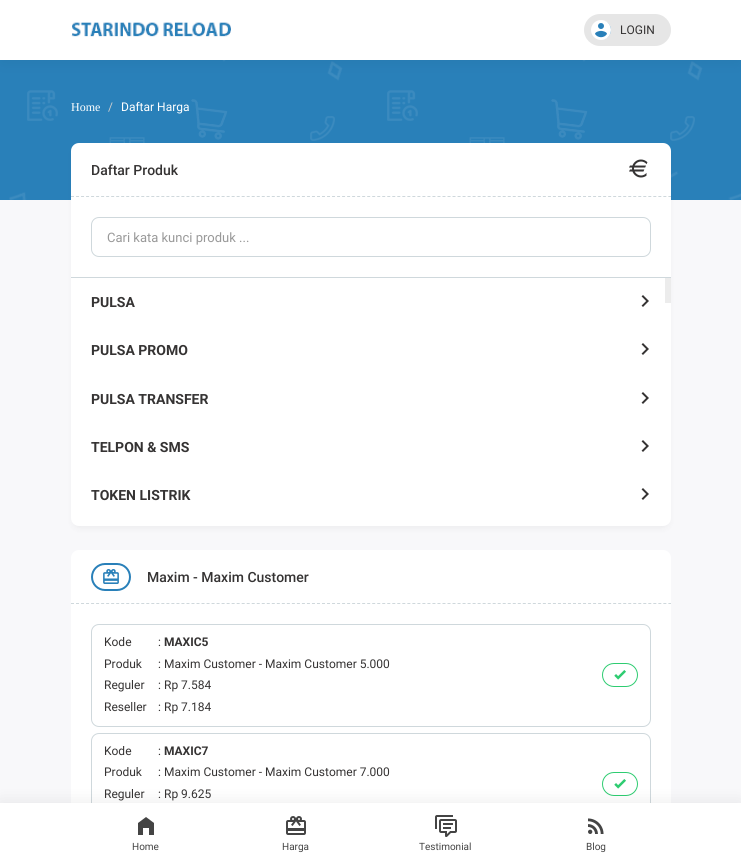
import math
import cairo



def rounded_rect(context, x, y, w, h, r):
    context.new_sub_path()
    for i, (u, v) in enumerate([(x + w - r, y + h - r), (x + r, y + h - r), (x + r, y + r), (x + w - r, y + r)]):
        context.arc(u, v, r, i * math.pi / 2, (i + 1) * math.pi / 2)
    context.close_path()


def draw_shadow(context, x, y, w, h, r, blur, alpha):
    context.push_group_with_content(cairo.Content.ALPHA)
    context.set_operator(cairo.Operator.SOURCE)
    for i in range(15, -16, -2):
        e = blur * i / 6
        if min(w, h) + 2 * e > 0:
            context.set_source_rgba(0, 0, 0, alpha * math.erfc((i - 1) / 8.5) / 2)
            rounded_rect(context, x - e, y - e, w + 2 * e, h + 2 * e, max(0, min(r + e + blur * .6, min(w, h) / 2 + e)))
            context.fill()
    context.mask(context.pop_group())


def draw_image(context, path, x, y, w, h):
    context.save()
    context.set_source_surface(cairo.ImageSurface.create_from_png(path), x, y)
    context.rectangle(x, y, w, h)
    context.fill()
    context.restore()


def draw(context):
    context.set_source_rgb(248 / 255, 248 / 255, 250 / 255)
    context.paint()
    context.set_source_rgb(41 / 255, 128 / 255, 185 / 255)
    context.rectangle(0, 60, 741, 140)
    context.fill()
    draw_image(context, "images/7.png", 9, 60, 732, 140)
    context.set_source_rgb(0, 0, 0)
    draw_shadow(context, 2, 6, 737, 56, 0, 7.5, 0.05)
    context.set_source_rgb(1, 1, 1)
    context.rectangle(0, 0, 741, 60)
    context.fill()
    draw_image(context, "images/1.png", 71, 22, 160, 15)
    context.set_source_rgb(230 / 255, 230 / 255, 230 / 255)
    rounded_rect(context, 584, 14, 87, 32, 16)
    context.fill()
    context.set_source_rgb(41 / 255, 128 / 255, 185 / 255)
    rounded_rect(context, 592, 21, 19, 18, 9)
    context.fill()
    draw_image(context, "images/2.png", 591, 20, 20, 20)
    context.set_source_rgb(1, 1, 1)
    rounded_rect(context, 71, 550, 600, 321, 8)
    context.fill()
    rounded_rect(context, 91.5, 733.5, 559, 101, 7.5)
    context.set_source_rgb(207 / 255, 216 / 255, 220 / 255)
    context.set_line_width(1)
    context.stroke()
    rounded_rect(context, 602.5, 772.5, 35, 23, 11.5)
    context.set_source_rgb(46 / 255, 204 / 255, 113 / 255)
    context.stroke()
    draw_image(context, "images/11.png", 614, 779, 12, 10)
    context.set_source_rgb(0, 0, 0)
    draw_shadow(context, 0, 801, 741, 60, 0, 8, 0.07)
    context.set_source_rgb(1, 1, 1)
    context.rectangle(0, 803, 741, 60)
    context.fill()
    draw_image(context, "images/3.png", 138, 817, 16, 18)
    draw_image(context, "images/4.png", 286, 816, 20, 19)
    draw_image(context, "images/5.png", 435, 815, 22, 22)
    draw_image(context, "images/6.png", 588, 818, 16, 16)
    context.set_source_rgb(0, 0, 0)
    draw_shadow(context, 73, 149, 596, 379, 6, 3.5, 0.05)
    context.set_source_rgb(1, 1, 1)
    rounded_rect(context, 71, 143, 600, 383, 8)
    context.fill()
    context.new_path()
    context.move_to(71, 196.5)
    context.line_to(671, 196.5)
    context.set_source_rgb(207 / 255, 216 / 255, 220 / 255)
    context.set_dash([3, 2.02])
    context.stroke()
    draw_image(context, "images/8.png", 629, 159, 19, 19)
    context.rectangle(71, 277, 600, 1)
    context.fill()
    rounded_rect(context, 91.5, 217.5, 559, 39, 7.5)
    context.set_dash([])
    context.stroke()
    context.set_source_rgb(236 / 255, 236 / 255, 236 / 255)
    context.rectangle(665, 278, 6, 25)
    context.fill()
    draw_image(context, "images/9.png", 641, 295, 8, 12)
    draw_image(context, "images/9.png", 641, 343, 8, 12)
    draw_image(context, "images/9.png", 641, 392, 8, 12)
    draw_image(context, "images/9.png", 641, 440, 8, 12)
    draw_image(context, "images/9.png", 641, 488, 8, 12)
    context.new_path()
    context.move_to(71, 603.5)
    context.line_to(671, 603.5)
    context.set_source_rgb(207 / 255, 216 / 255, 220 / 255)
    context.set_dash([3, 2.02])
    context.stroke()
    rounded_rect(context, 92, 564, 38, 26, 13)
    context.set_source_rgb(41 / 255, 128 / 255, 185 / 255)
    context.set_line_width(2)
    context.set_dash([])
    context.stroke()
    draw_image(context, "images/10.png", 103, 569, 16, 15)
    rounded_rect(context, 91.5, 624.5, 559, 102, 7.5)
    context.set_source_rgb(207 / 255, 216 / 255, 220 / 255)
    context.set_line_width(1)
    context.stroke()
    rounded_rect(context, 602.5, 663.5, 35, 23, 11.5)
    context.set_source_rgb(46 / 255, 204 / 255, 113 / 255)
    context.stroke()
    draw_image(context, "images/11.png", 614, 670, 12, 10)
    context.select_font_face("Roboto")
    context.set_font_size(12)
    context.set_source_rgb(53 / 255, 51 / 255, 51 / 255)
    context.move_to(620, 34)
    context.show_text("LOGIN")
    context.set_font_size(10)
    context.set_source_rgb(68 / 255, 68 / 255, 68 / 255)
    context.move_to(132, 850)
    context.show_text("Home")
    context.move_to(282, 850)
    context.show_text("Harga")
    context.move_to(419, 850)
    context.show_text("Testimonial")
    context.move_to(586, 850)
    context.show_text("Blog")
    context.select_font_face("Liberation Serif")
    context.set_font_size(12)
    context.set_source_rgb(1, 1, 1)
    context.move_to(71, 111)
    context.show_text("Home")
    context.select_font_face("Roboto")
    context.set_source_rgb(204 / 255, 204 / 255, 204 / 255)
    context.move_to(108, 111)
    context.show_text("/")
    context.set_source_rgb(1, 1, 1)
    context.move_to(121, 111)
    context.show_text("Daftar Harga")
    context.select_font_face("Roboto Medium")
    context.set_font_size(14)
    context.set_source_rgb(53 / 255, 51 / 255, 51 / 255)
    context.move_to(91, 175)
    context.show_text("Daftar Produk")
    context.select_font_face("Roboto")
    context.set_font_size(13)
    context.set_source_rgb(153 / 255, 153 / 255, 153 / 255)
    context.move_to(107, 242)
    context.show_text("Cari kata kunci produk ...")
    context.select_font_face("Roboto", cairo.FontSlant.NORMAL, cairo.FontWeight.BOLD)
    context.set_font_size(14)
    context.set_source_rgb(53 / 255, 51 / 255, 51 / 255)
    context.move_to(91, 307)
    context.show_text("PULSA")
    context.move_to(91, 355)
    context.show_text("PULSA PROMO")
    context.move_to(91, 404)
    context.show_text("PULSA TRANSFER")
    context.move_to(91, 452)
    context.show_text("TELPON & SMS")
    context.move_to(91, 500)
    context.show_text("TOKEN LISTRIK")
    context.select_font_face("Roboto Medium")
    context.move_to(147, 582)
    context.show_text("Maxim - Maxim Customer")
    context.select_font_face("Roboto")
    context.set_font_size(12)
    context.move_to(104, 646)
    context.show_text("Kode")
    context.move_to(158, 646)
    context.show_text(":")
    context.select_font_face("Roboto", cairo.FontSlant.NORMAL, cairo.FontWeight.BOLD)
    context.move_to(164, 646)
    context.show_text("MAXIC5")
    context.select_font_face("Roboto")
    context.move_to(104, 668)
    context.show_text("Produk")
    context.move_to(158, 668)
    context.show_text(":")
    context.move_to(164, 668)
    context.show_text("Maxim Customer - Maxim Customer 5.000")
    context.move_to(104, 689)
    context.show_text("Reguler")
    context.move_to(158, 689)
    context.show_text(":")
    context.move_to(164, 689)
    context.show_text("Rp 7.584")
    context.move_to(104, 711)
    context.show_text("Reseller")
    context.move_to(158, 711)
    context.show_text(":")
    context.move_to(164, 711)
    context.show_text("Rp 7.184")
    context.move_to(104, 755)
    context.show_text("Kode")
    context.move_to(158, 755)
    context.show_text(":")
    context.select_font_face("Roboto", cairo.FontSlant.NORMAL, cairo.FontWeight.BOLD)
    context.move_to(164, 755)
    context.show_text("MAXIC7")
    context.select_font_face("Roboto")
    context.move_to(104, 776)
    context.show_text("Produk")
    context.move_to(158, 776)
    context.show_text(":")
    context.move_to(164, 776)
    context.show_text("Maxim Customer - Maxim Customer 7.000")
    context.move_to(104, 798)
    context.show_text("Reguler")
    context.move_to(158, 798)
    context.show_text(":")
    context.move_to(164, 798)
    context.show_text("Rp 9.625")


surface = cairo.ImageSurface(cairo.Format.RGB24, 741, 863)
context = cairo.Context(surface)
options = cairo.FontOptions()
options.set_hint_metrics(cairo.HintMetrics.OFF)
options.set_hint_style(cairo.HintStyle.NONE)
context.set_font_options(options)
context.set_miter_limit(4)
draw(context)
surface.write_to_png("out.png")
